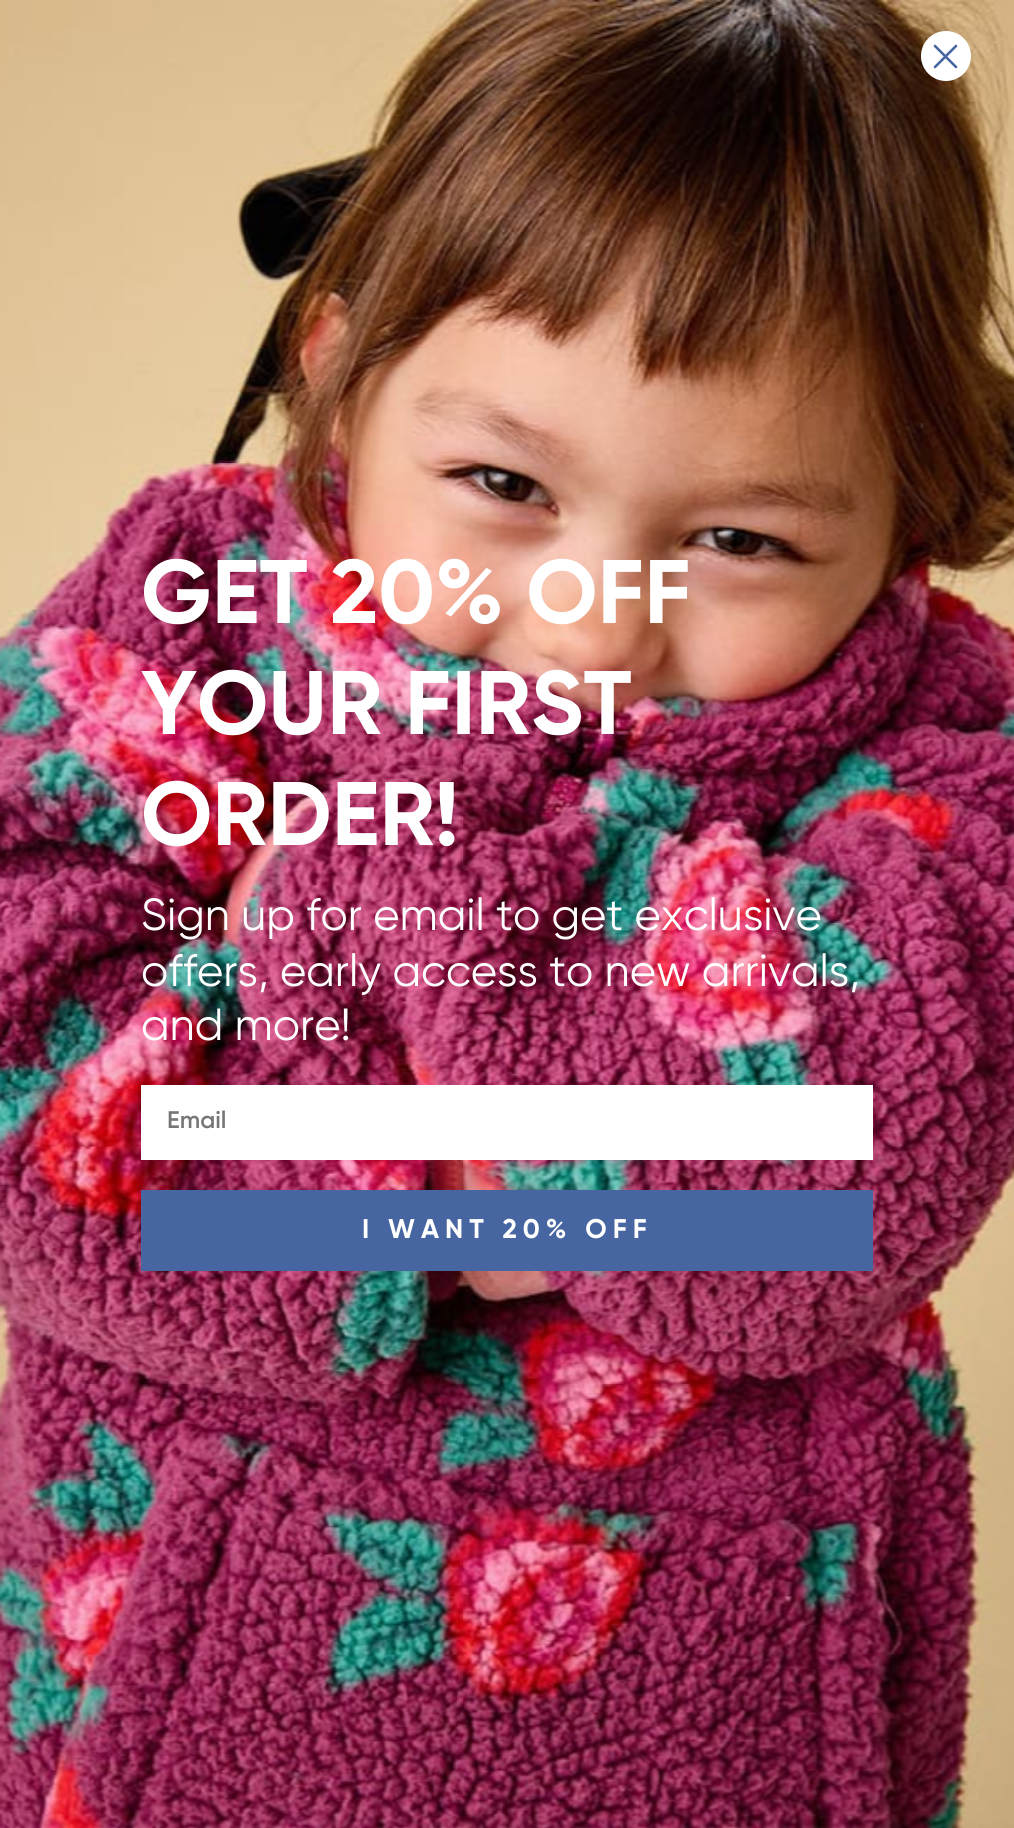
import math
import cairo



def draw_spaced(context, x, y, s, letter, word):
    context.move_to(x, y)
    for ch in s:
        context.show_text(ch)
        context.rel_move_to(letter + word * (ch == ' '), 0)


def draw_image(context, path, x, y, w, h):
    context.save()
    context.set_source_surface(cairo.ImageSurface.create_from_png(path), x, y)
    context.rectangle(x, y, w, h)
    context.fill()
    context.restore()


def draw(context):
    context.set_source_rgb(1, 1, 1)
    context.paint()
    draw_image(context, "images/1.png", 0, 0, 1014, 1828)
    context.set_source_rgb(1, 1, 1)
    context.arc(946, 56, 25, 0, 2 * math.pi)
    context.fill()
    context.new_path()
    context.move_to(935, 46)
    context.line_to(956, 67)
    context.move_to(935, 67)
    context.line_to(956, 46)
    context.close_path()
    context.set_source_rgb(71 / 255, 101 / 255, 161 / 255)
    context.set_line_width(2.6)
    context.set_line_cap(cairo.LineCap.ROUND)
    context.set_line_join(cairo.LineJoin.ROUND)
    context.stroke()
    context.set_source_rgb(1, 1, 1)
    context.rectangle(141, 1085, 732, 75)
    context.fill()
    context.set_source_rgb(71 / 255, 101 / 255, 161 / 255)
    context.rectangle(141, 1190, 732, 81)
    context.fill()
    context.select_font_face("Gilroy")
    context.set_font_size(90)
    context.set_source_rgb(1, 1, 1)
    context.move_to(141, 623)
    context.show_text("GET 20% OFF")
    context.move_to(141, 734)
    context.show_text("YOUR FIRST")
    context.move_to(141, 845)
    context.show_text("ORDER!")
    context.select_font_face("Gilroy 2")
    context.set_font_size(45)
    context.move_to(141, 930)
    context.show_text("Sign up for email to get exclusive")
    context.move_to(141, 986)
    context.show_text("offers, early access to new arrivals,")
    context.move_to(141, 1040)
    context.show_text("and more!")
    context.select_font_face("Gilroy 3")
    context.set_font_size(24)
    context.set_source_rgb(118 / 255, 118 / 255, 118 / 255)
    context.move_to(167, 1128)
    context.show_text("Email")
    context.select_font_face("Gilroy")
    context.set_font_size(27)
    context.set_source_rgb(1, 1, 1)
    draw_spaced(context, 362, 1238, "I WANT 20% OFF", 6, 0)


surface = cairo.ImageSurface(cairo.Format.RGB24, 1014, 1828)
context = cairo.Context(surface)
options = cairo.FontOptions()
options.set_hint_metrics(cairo.HintMetrics.OFF)
options.set_hint_style(cairo.HintStyle.NONE)
context.set_font_options(options)
context.set_miter_limit(4)
draw(context)
surface.write_to_png("out.png")
